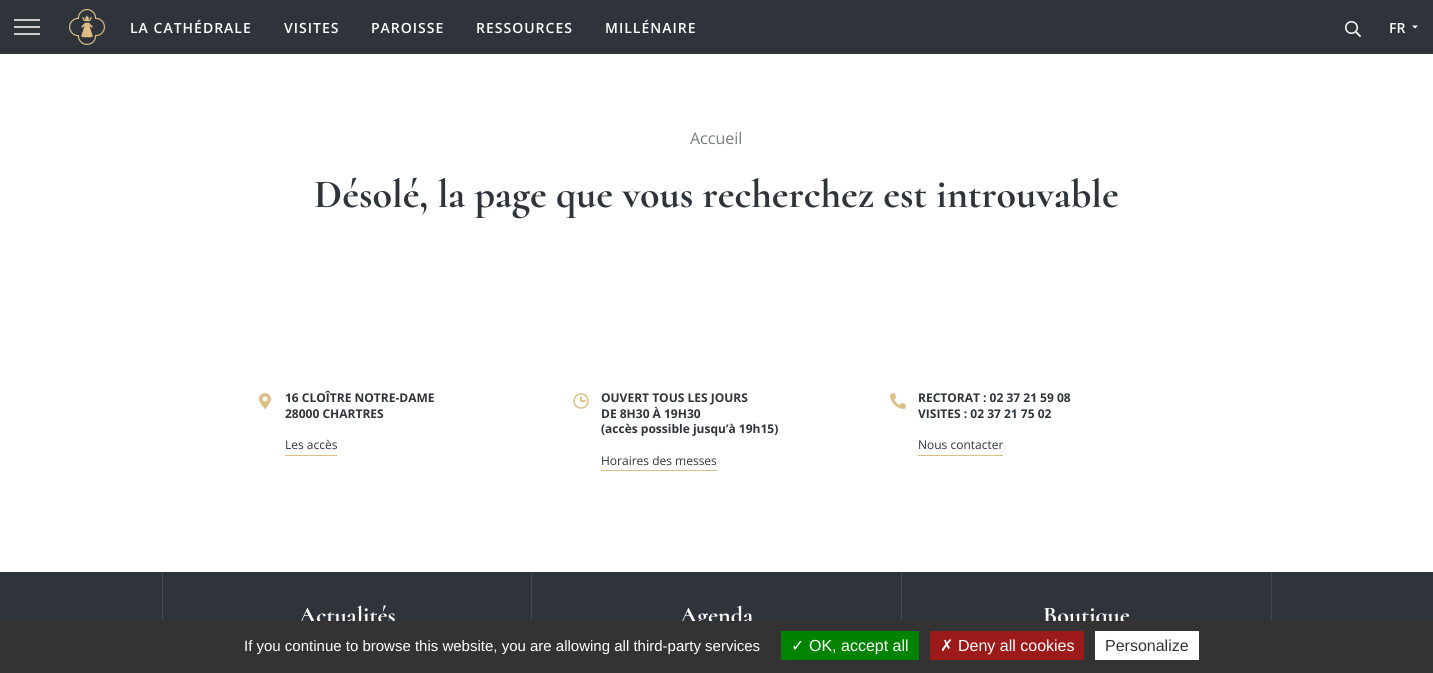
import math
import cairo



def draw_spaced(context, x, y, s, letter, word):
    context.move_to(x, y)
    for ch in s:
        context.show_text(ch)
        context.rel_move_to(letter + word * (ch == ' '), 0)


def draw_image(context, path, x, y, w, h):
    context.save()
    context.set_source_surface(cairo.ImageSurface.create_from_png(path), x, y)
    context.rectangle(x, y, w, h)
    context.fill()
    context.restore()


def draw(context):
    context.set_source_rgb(1, 1, 1)
    context.paint()
    context.set_source_rgb(47 / 255, 52 / 255, 59 / 255)
    context.rectangle(0, 0, 1433, 54)
    context.fill()
    context.set_source_rgb(205 / 255, 205 / 255, 205 / 255)
    context.rectangle(14, 26, 26, 2)
    context.fill()
    context.rectangle(14, 19, 26, 2)
    context.fill()
    context.rectangle(14, 33, 26, 2)
    context.fill()
    draw_image(context, "images/1.png", 69, 9, 36, 36)
    draw_image(context, "images/2.png", 1345, 21, 16, 16)
    context.set_source_rgb(1, 1, 1)
    context.new_path()
    context.move_to(1412, 25.5)
    context.line_to(1418, 25.5)
    context.line_to(1415, 28.5)
    context.close_path()
    context.fill()
    draw_image(context, "images/3.png", 259, 393, 12, 16)
    context.set_source_rgb(221 / 255, 190 / 255, 133 / 255)
    context.rectangle(285, 455, 52, 1)
    context.fill()
    draw_image(context, "images/4.png", 573, 393, 16, 16)
    context.rectangle(601, 470, 116, 1)
    context.fill()
    draw_image(context, "images/5.png", 890, 393, 16, 16)
    context.rectangle(918, 455, 85, 1)
    context.fill()
    context.set_source_rgb(47 / 255, 52 / 255, 59 / 255)
    context.rectangle(0, 572, 1433, 49)
    context.fill()
    context.set_source_rgb(68 / 255, 73 / 255, 79 / 255)
    context.rectangle(1271, 572, 1, 49)
    context.fill()
    context.rectangle(162, 572, 1, 49)
    context.fill()
    context.rectangle(531, 572, 1, 49)
    context.fill()
    context.rectangle(901, 572, 1, 49)
    context.fill()
    context.select_font_face("Open Sans SemiBold")
    context.set_font_size(14)
    context.set_source_rgb(1, 1, 1)
    draw_spaced(context, 130, 33, "LA CATHÉDRALE", 1, 0)
    draw_spaced(context, 284, 33, "VISITES", 1, 0)
    draw_spaced(context, 371, 33, "PAROISSE", 1, 0)
    draw_spaced(context, 476, 33, "RESSOURCES", 1, 0)
    draw_spaced(context, 605, 33, "MILLÉNAIRE", 1, 0)
    context.move_to(1389, 33)
    context.show_text("FR")
    context.select_font_face("Open Sans")
    context.set_font_size(16)
    context.set_source_rgb(120 / 255, 122 / 255, 126 / 255)
    context.move_to(690, 144)
    context.show_text("Accueil")
    context.select_font_face("Cormorant Light")
    context.set_font_size(40)
    context.set_source_rgb(47 / 255, 52 / 255, 59 / 255)
    context.move_to(314, 207)
    context.show_text("Désolé, la page que vous recherchez est introuvable")
    context.select_font_face("Open Sans", cairo.FontSlant.NORMAL, cairo.FontWeight.BOLD)
    context.set_font_size(12)
    context.move_to(285, 402)
    context.show_text("16 CLOÎTRE NOTRE-DAME")
    context.move_to(285, 418)
    context.show_text("28000 CHARTRES")
    context.select_font_face("Open Sans")
    context.move_to(285, 449)
    context.show_text("Les accès")
    context.select_font_face("Open Sans", cairo.FontSlant.NORMAL, cairo.FontWeight.BOLD)
    context.move_to(601, 402)
    context.show_text("OUVERT TOUS LES JOURS")
    context.move_to(601, 418)
    context.show_text("DE 8H30 À 19H30")
    context.move_to(601, 433)
    context.show_text("(accès possible jusqu’à 19h15)")
    context.select_font_face("Open Sans")
    context.move_to(601, 465)
    context.show_text("Horaires des messes")
    context.select_font_face("Open Sans", cairo.FontSlant.NORMAL, cairo.FontWeight.BOLD)
    context.move_to(918, 402)
    context.show_text("RECTORAT : 02 37 21 59 08")
    context.move_to(918, 418)
    context.show_text("VISITES : 02 37 21 75 02")
    context.select_font_face("Open Sans")
    context.move_to(918, 449)
    context.show_text("Nous contacter")
    context.select_font_face("Cormorant Light")
    context.set_font_size(24)
    context.set_source_rgb(1, 1, 1)
    context.move_to(299, 623)
    context.show_text("Actualités")
    context.move_to(680, 623)
    context.show_text("Agenda")
    context.move_to(1043, 623)
    context.show_text("Boutique")
    context.set_source_rgb(51 / 255, 51 / 255, 51 / 255)
    context.rectangle(0, 621, 1433, 52)
    context.fill()
    context.select_font_face("Liberation Sans")
    context.set_font_size(15)
    context.set_source_rgb(1, 1, 1)
    context.move_to(244, 651)
    context.show_text("If you continue to browse this website, you are allowing all third-party services")
    context.set_source_rgb(0, 131 / 255, 0)
    context.rectangle(781, 631, 138, 29)
    context.fill()
    context.select_font_face("DejaVu Sans")
    context.set_font_size(16)
    context.set_source_rgb(1, 1, 1)
    context.move_to(791, 651)
    context.show_text("✓")
    context.select_font_face("Liberation Sans")
    context.move_to(809, 651)
    context.show_text("OK, accept all")
    context.set_source_rgb(156 / 255, 26 / 255, 26 / 255)
    context.rectangle(930, 631, 154, 29)
    context.fill()
    context.select_font_face("DejaVu Sans")
    context.set_source_rgb(1, 1, 1)
    context.move_to(940, 651)
    context.show_text("✗")
    context.select_font_face("Liberation Sans")
    context.move_to(958, 651)
    context.show_text("Deny all cookies")
    context.rectangle(1095, 631, 104, 29)
    context.fill()
    context.set_source_rgb(51 / 255, 51 / 255, 51 / 255)
    context.move_to(1105, 651)
    context.show_text("Personalize")


surface = cairo.ImageSurface(cairo.Format.RGB24, 1433, 673)
context = cairo.Context(surface)
options = cairo.FontOptions()
options.set_hint_metrics(cairo.HintMetrics.OFF)
options.set_hint_style(cairo.HintStyle.NONE)
context.set_font_options(options)
context.set_miter_limit(4)
draw(context)
surface.write_to_png("out.png")
